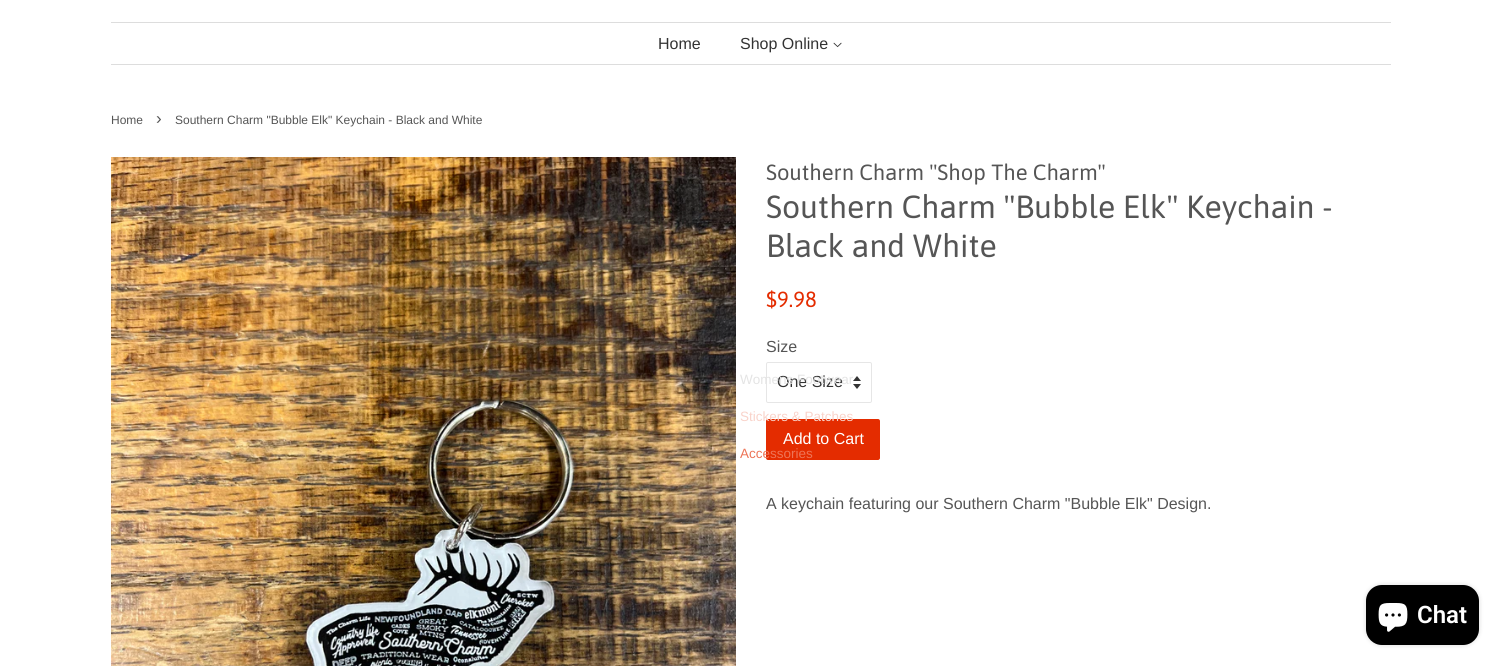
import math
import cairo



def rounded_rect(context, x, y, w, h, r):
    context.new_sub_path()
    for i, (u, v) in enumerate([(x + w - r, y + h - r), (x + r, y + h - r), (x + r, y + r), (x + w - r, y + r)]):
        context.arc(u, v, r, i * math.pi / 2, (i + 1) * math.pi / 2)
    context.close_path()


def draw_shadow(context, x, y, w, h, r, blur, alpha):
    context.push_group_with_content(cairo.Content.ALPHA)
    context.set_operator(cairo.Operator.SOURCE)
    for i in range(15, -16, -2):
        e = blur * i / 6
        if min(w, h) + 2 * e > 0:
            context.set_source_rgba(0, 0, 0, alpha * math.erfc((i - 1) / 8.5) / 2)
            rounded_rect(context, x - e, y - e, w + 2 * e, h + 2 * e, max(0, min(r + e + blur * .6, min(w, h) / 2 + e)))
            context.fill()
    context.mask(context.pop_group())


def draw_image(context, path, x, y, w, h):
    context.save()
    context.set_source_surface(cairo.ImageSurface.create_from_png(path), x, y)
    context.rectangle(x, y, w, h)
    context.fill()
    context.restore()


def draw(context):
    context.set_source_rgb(1, 1, 1)
    context.paint()
    context.set_source_rgb(221 / 255, 221 / 255, 221 / 255)
    context.rectangle(111, 22, 1280, 1)
    context.fill()
    context.rectangle(111, 64, 1280, 1)
    context.fill()
    draw_image(context, "images/1.png", 833, 42, 9, 6)
    draw_image(context, "images/2.png", 111, 157, 625, 509)
    draw_image(context, "images/3.png", 853, 376, 8, 13)
    rounded_rect(context, 766.5, 362.5, 105, 40, 1.5)
    context.set_source_rgb(230 / 255, 230 / 255, 230 / 255)
    context.set_line_width(1)
    context.stroke()
    context.set_source_rgb(228 / 255, 44 / 255, 0)
    rounded_rect(context, 766, 419, 114, 41, 2)
    context.fill()
    context.set_source_rgb(0, 0, 0)
    draw_shadow(context, 1366, 585, 113, 60, 16, 2.5, 0.15)
    context.set_source_rgb(0, 0, 0)
    rounded_rect(context, 1366, 585, 113, 60, 16)
    context.fill()
    draw_image(context, "images/4.png", 1378, 603, 30, 29)
    context.select_font_face("Liberation Sans")
    context.set_font_size(16)
    context.set_source_rgb(51 / 255, 51 / 255, 51 / 255)
    context.move_to(658, 49)
    context.show_text("Home")
    context.move_to(740, 49)
    context.show_text("Shop Online")
    context.set_font_size(13.5)
    context.set_source_rgb(249 / 255, 211 / 255, 202 / 255)
    context.move_to(740, 421)
    context.show_text("Stickers & Patches")
    context.set_source_rgb(237 / 255, 116 / 255, 87 / 255)
    context.move_to(740, 458)
    context.show_text("Accessories")
    context.set_font_size(12)
    context.set_source_rgb(85 / 255, 85 / 255, 85 / 255)
    context.move_to(111, 124)
    context.show_text("Home")
    context.set_font_size(17)
    context.move_to(156, 124)
    context.show_text("›")
    context.set_font_size(12)
    context.move_to(175, 124)
    context.show_text("Southern Charm \"Bubble Elk\" Keychain - Black and White")
    context.select_font_face("Asap")
    context.set_font_size(22)
    context.move_to(766, 180)
    context.show_text("Southern Charm \"Shop The Charm\"")
    context.set_font_size(32)
    context.move_to(766, 218)
    context.show_text("Southern Charm \"Bubble Elk\" Keychain -")
    context.move_to(766, 257)
    context.show_text("Black and White")
    context.set_font_size(22)
    context.set_source_rgb(228 / 255, 44 / 255, 0)
    context.move_to(766, 307)
    context.show_text("$9.98")
    context.select_font_face("Liberation Sans")
    context.set_font_size(16)
    context.set_source_rgb(85 / 255, 85 / 255, 85 / 255)
    context.move_to(766, 352)
    context.show_text("Size")
    context.set_source_rgb(51 / 255, 51 / 255, 51 / 255)
    context.move_to(777, 387)
    context.show_text("One Size")
    context.set_font_size(13.5)
    context.set_source_rgb(228 / 255, 228 / 255, 228 / 255)
    context.move_to(740, 384)
    context.show_text("Womens Footwear")
    context.set_font_size(16)
    context.set_source_rgb(1, 1, 1)
    context.move_to(783, 444)
    context.show_text("Add to Cart")
    context.set_source_rgb(85 / 255, 85 / 255, 85 / 255)
    context.move_to(766, 509)
    context.show_text("A keychain featuring our Southern Charm \"Bubble Elk\" Design.")
    context.select_font_face("Roboto SemiBold")
    context.set_font_size(24)
    context.set_source_rgb(1, 1, 1)
    context.move_to(1417, 623)
    context.show_text("Chat")


surface = cairo.ImageSurface(cairo.Format.RGB24, 1501, 666)
context = cairo.Context(surface)
options = cairo.FontOptions()
options.set_hint_metrics(cairo.HintMetrics.OFF)
options.set_hint_style(cairo.HintStyle.NONE)
context.set_font_options(options)
context.set_miter_limit(4)
draw(context)
surface.write_to_png("out.png")
